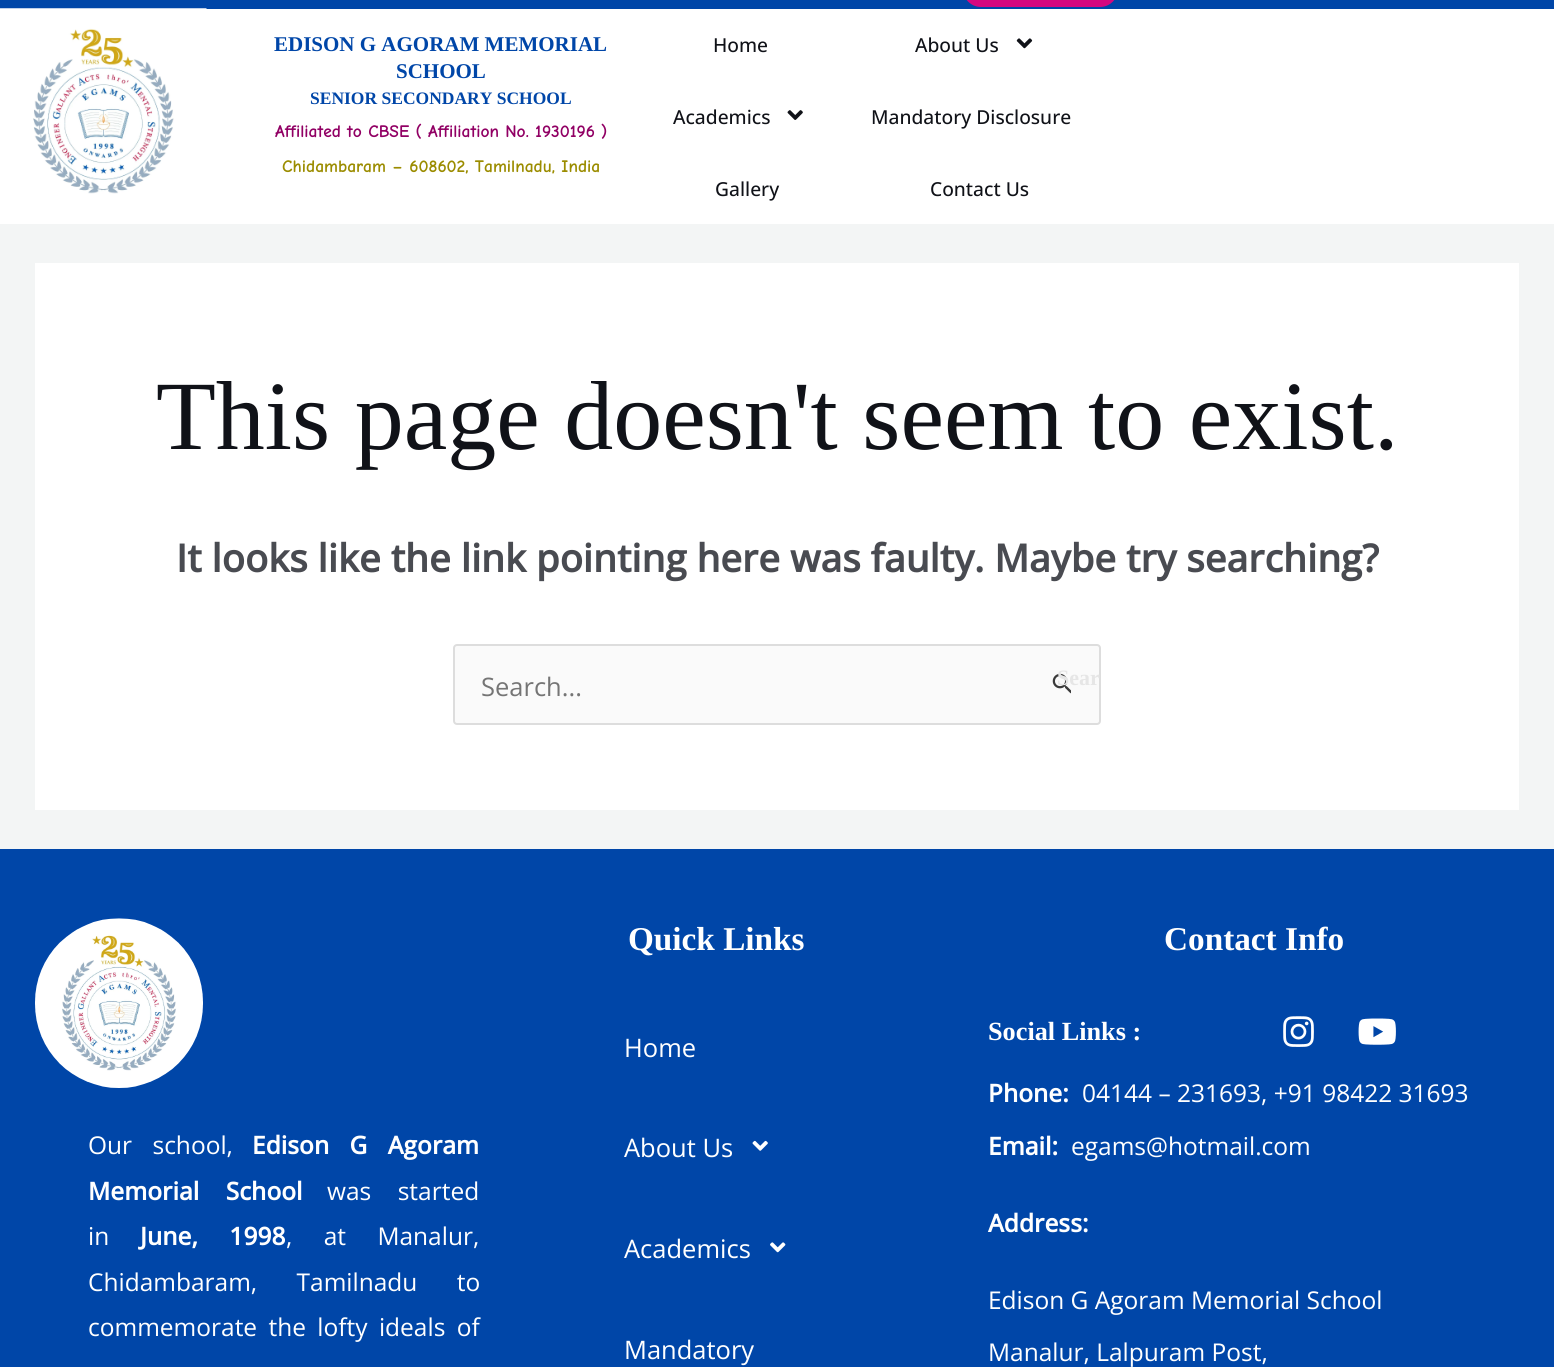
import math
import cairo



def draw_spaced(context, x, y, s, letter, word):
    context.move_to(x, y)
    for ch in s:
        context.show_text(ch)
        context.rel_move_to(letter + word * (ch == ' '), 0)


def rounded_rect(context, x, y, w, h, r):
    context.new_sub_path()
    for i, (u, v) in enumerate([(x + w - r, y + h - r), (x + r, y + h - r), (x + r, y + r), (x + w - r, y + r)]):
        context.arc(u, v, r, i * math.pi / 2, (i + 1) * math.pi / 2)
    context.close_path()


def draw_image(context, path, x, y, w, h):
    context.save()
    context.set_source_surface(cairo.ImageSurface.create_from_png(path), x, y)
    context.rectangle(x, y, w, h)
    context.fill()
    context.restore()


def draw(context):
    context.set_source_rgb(243 / 255, 245 / 255, 245 / 255)
    context.paint()
    context.set_source_rgb(0, 70 / 255, 168 / 255)
    context.rectangle(0, 0, 1554, 9)
    context.fill()
    context.set_source_rgb(212 / 255, 8 / 255, 128 / 255)
    rounded_rect(context, 963, -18, 155, 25, 18)
    context.fill()
    context.set_source_rgb(1, 1, 1)
    context.rectangle(0, 9, 1554, 215)
    context.fill()
    draw_image(context, "images/1.png", 0, 8, 207, 186)
    draw_image(context, "images/2.png", 1016, 38, 17, 11)
    draw_image(context, "images/3.png", 787, 110, 16, 10)
    context.rectangle(35, 263, 1484, 547)
    context.fill()
    context.set_source_rgb(250 / 255, 250 / 255, 250 / 255)
    rounded_rect(context, 454, 645, 646, 79, 3)
    context.fill_preserve()
    context.set_source_rgb(221 / 255, 221 / 255, 221 / 255)
    context.stroke()
    draw_image(context, "images/4.png", 1052, 673, 19, 21)
    context.set_source_rgb(0, 70 / 255, 168 / 255)
    context.rectangle(0, 849, 1554, 518)
    context.fill()
    draw_image(context, "images/5.png", 35, 918, 168, 170)
    draw_image(context, "images/6.png", 752, 1140, 16, 11)
    draw_image(context, "images/7.png", 770, 1242, 16, 11)
    draw_image(context, "images/8.png", 1283, 1016, 31, 31)
    draw_image(context, "images/9.png", 1358, 1018, 38, 27)
    context.select_font_face("Liberation Serif", cairo.FontSlant.NORMAL, cairo.FontWeight.BOLD)
    context.set_font_size(21)
    context.move_to(274, 51)
    context.show_text("EDISON G AGORAM MEMORIAL")
    context.move_to(396, 78)
    context.show_text("SCHOOL")
    context.set_font_size(17.5)
    context.move_to(310, 104)
    context.show_text("SENIOR SECONDARY SCHOOL")
    context.select_font_face("Comic Neue", cairo.FontSlant.NORMAL, cairo.FontWeight.BOLD)
    context.set_source_rgb(145 / 255, 0, 100 / 255)
    context.move_to(275, 137)
    context.show_text("Affiliated to CBSE ( Affiliation No. 1930196 )")
    context.set_source_rgb(155 / 255, 140 / 255, 0)
    context.move_to(282, 172)
    context.show_text("Chidambaram – 608602, Tamilnadu, India")
    context.select_font_face("Open Sans Medium")
    context.set_font_size(19.25)
    context.set_source_rgb(16 / 255, 18 / 255, 24 / 255)
    context.move_to(713, 52)
    context.show_text("Home")
    context.move_to(915, 52)
    context.show_text("About Us")
    context.move_to(673, 124)
    context.show_text("Academics")
    context.move_to(871, 124)
    context.show_text("Mandatory Disclosure")
    context.move_to(715, 196)
    context.show_text("Gallery")
    context.move_to(930, 196)
    context.show_text("Contact Us")
    context.select_font_face("Liberation Serif")
    context.set_font_size(98)
    context.move_to(156, 449)
    context.show_text("This page doesn't seem to exist.")
    context.select_font_face("Open Sans", cairo.FontSlant.NORMAL, cairo.FontWeight.BOLD)
    context.set_font_size(38.3)
    context.set_source_rgb(73 / 255, 75 / 255, 81 / 255)
    context.move_to(176, 572)
    context.show_text("It looks like the link pointing here was faulty. Maybe try searching?")
    context.select_font_face("Open Sans")
    context.set_font_size(25.5)
    context.set_source_rgb(117 / 255, 117 / 255, 117 / 255)
    context.move_to(481, 696)
    context.show_text("Search...")
    context.select_font_face("Liberation Serif", cairo.FontSlant.NORMAL, cairo.FontWeight.BOLD)
    context.set_font_size(22)
    context.set_source_rgb(230 / 255, 230 / 255, 230 / 255)
    context.move_to(1057, 685)
    context.show_text("Sear")
    context.select_font_face("Open Sans")
    context.set_font_size(24.5)
    context.set_source_rgb(1, 1, 1)
    draw_spaced(context, 88, 1154, "Our school,", 0, 14)
    context.select_font_face("Open Sans", cairo.FontSlant.NORMAL, cairo.FontWeight.BOLD)
    draw_spaced(context, 252, 1154, "Edison G Agoram", 0, 14)
    draw_spaced(context, 88, 1200, "Memorial School", 0, 20)
    context.select_font_face("Open Sans")
    draw_spaced(context, 327, 1200, "was started", 0, 20)
    context.move_to(88, 1245)
    context.show_text("in")
    context.select_font_face("Open Sans", cairo.FontSlant.NORMAL, cairo.FontWeight.BOLD)
    draw_spaced(context, 140, 1245, "June, 1998", 0, 25)
    context.select_font_face("Open Sans")
    draw_spaced(context, 286, 1245, ", at Manalur,", 0, 25)
    draw_spaced(context, 88, 1291, "Chidambaram, Tamilnadu to", 0, 33)
    draw_spaced(context, 88, 1336, "commemorate the lofty ideals of", 0, 5)
    context.select_font_face("Liberation Serif", cairo.FontSlant.NORMAL, cairo.FontWeight.BOLD)
    context.set_font_size(33.25)
    context.move_to(628, 950)
    context.show_text("Quick Links")
    context.select_font_face("Open Sans")
    context.set_font_size(25.5)
    context.move_to(624, 1057)
    context.show_text("Home")
    context.move_to(624, 1157)
    context.show_text("About Us")
    context.move_to(624, 1258)
    context.show_text("Academics")
    context.move_to(624, 1359)
    context.show_text("Mandatory")
    context.select_font_face("Liberation Serif", cairo.FontSlant.NORMAL, cairo.FontWeight.BOLD)
    context.set_font_size(33.25)
    context.move_to(1164, 950)
    context.show_text("Contact Info")
    context.set_font_size(26.25)
    context.move_to(988, 1040)
    context.show_text("Social Links :")
    context.select_font_face("Open Sans", cairo.FontSlant.NORMAL, cairo.FontWeight.BOLD)
    context.set_font_size(24.5)
    context.move_to(988, 1102)
    context.show_text("Phone:")
    context.select_font_face("Open Sans")
    context.move_to(1082, 1102)
    context.show_text("04144 – 231693, +91 98422 31693")
    context.select_font_face("Open Sans", cairo.FontSlant.NORMAL, cairo.FontWeight.BOLD)
    context.move_to(988, 1155)
    context.show_text("Email:")
    context.select_font_face("Open Sans")
    context.move_to(1071, 1155)
    context.show_text("egams@hotmail.com")
    context.select_font_face("Open Sans", cairo.FontSlant.NORMAL, cairo.FontWeight.BOLD)
    context.move_to(988, 1232)
    context.show_text("Address:")
    context.select_font_face("Open Sans")
    context.move_to(988, 1309)
    context.show_text("Edison G Agoram Memorial School")
    context.move_to(988, 1361)
    context.show_text("Manalur, Lalpuram Post,")


surface = cairo.ImageSurface(cairo.Format.RGB24, 1554, 1367)
context = cairo.Context(surface)
options = cairo.FontOptions()
options.set_hint_metrics(cairo.HintMetrics.OFF)
options.set_hint_style(cairo.HintStyle.NONE)
context.set_font_options(options)
context.set_miter_limit(4)
draw(context)
surface.write_to_png("out.png")
